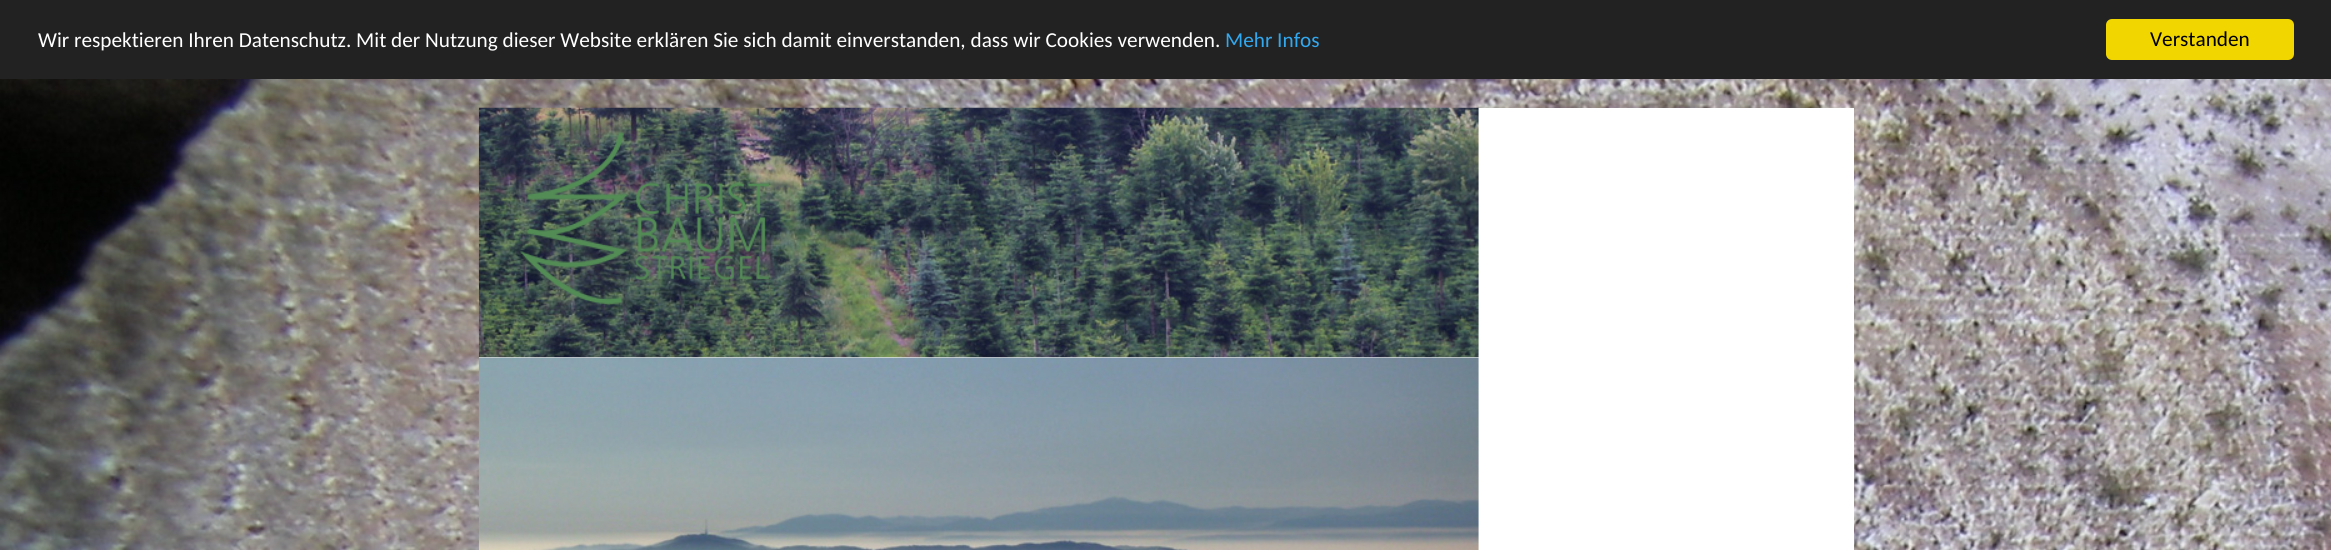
import math
import cairo



def rounded_rect(context, x, y, w, h, r):
    context.new_sub_path()
    for i, (u, v) in enumerate([(x + w - r, y + h - r), (x + r, y + h - r), (x + r, y + r), (x + w - r, y + r)]):
        context.arc(u, v, r, i * math.pi / 2, (i + 1) * math.pi / 2)
    context.close_path()


def draw_image(context, path, x, y, w, h):
    context.save()
    context.set_source_surface(cairo.ImageSurface.create_from_png(path), x, y)
    context.rectangle(x, y, w, h)
    context.fill()
    context.restore()


def draw(context):
    context.set_source_rgb(1, 1, 1)
    context.paint()
    draw_image(context, "images/1.png", 0, 79, 2331, 471)
    context.set_source_rgb(34 / 255, 34 / 255, 34 / 255)
    context.rectangle(0, 0, 2331, 79)
    context.fill()
    context.set_source_rgb(241 / 255, 214 / 255, 0)
    rounded_rect(context, 2106, 19, 188, 41, 6)
    context.fill()
    context.set_source_rgb(1, 1, 1)
    context.rectangle(479, 108, 1375, 442)
    context.fill()
    draw_image(context, "images/2.png", 478, 107, 1001, 251)
    draw_image(context, "images/3.png", 478, 357, 1001, 193)
    draw_image(context, "images/4.png", 520, 132, 249, 172)
    context.select_font_face("Carlito")
    context.set_font_size(21.25)
    context.move_to(38, 47)
    context.show_text("Wir respektieren Ihren Datenschutz. Mit der Nutzung dieser Website erklären Sie sich damit einverstanden, dass wir Cookies verwenden.")
    context.set_source_rgb(49 / 255, 168 / 255, 240 / 255)
    context.move_to(1225, 47)
    context.show_text("Mehr Infos")
    context.set_source_rgb(0, 0, 0)
    context.move_to(2150, 46)
    context.show_text("Verstanden")


surface = cairo.ImageSurface(cairo.Format.RGB24, 2331, 550)
context = cairo.Context(surface)
options = cairo.FontOptions()
options.set_hint_metrics(cairo.HintMetrics.OFF)
options.set_hint_style(cairo.HintStyle.NONE)
context.set_font_options(options)
context.set_miter_limit(4)
draw(context)
surface.write_to_png("out.png")
